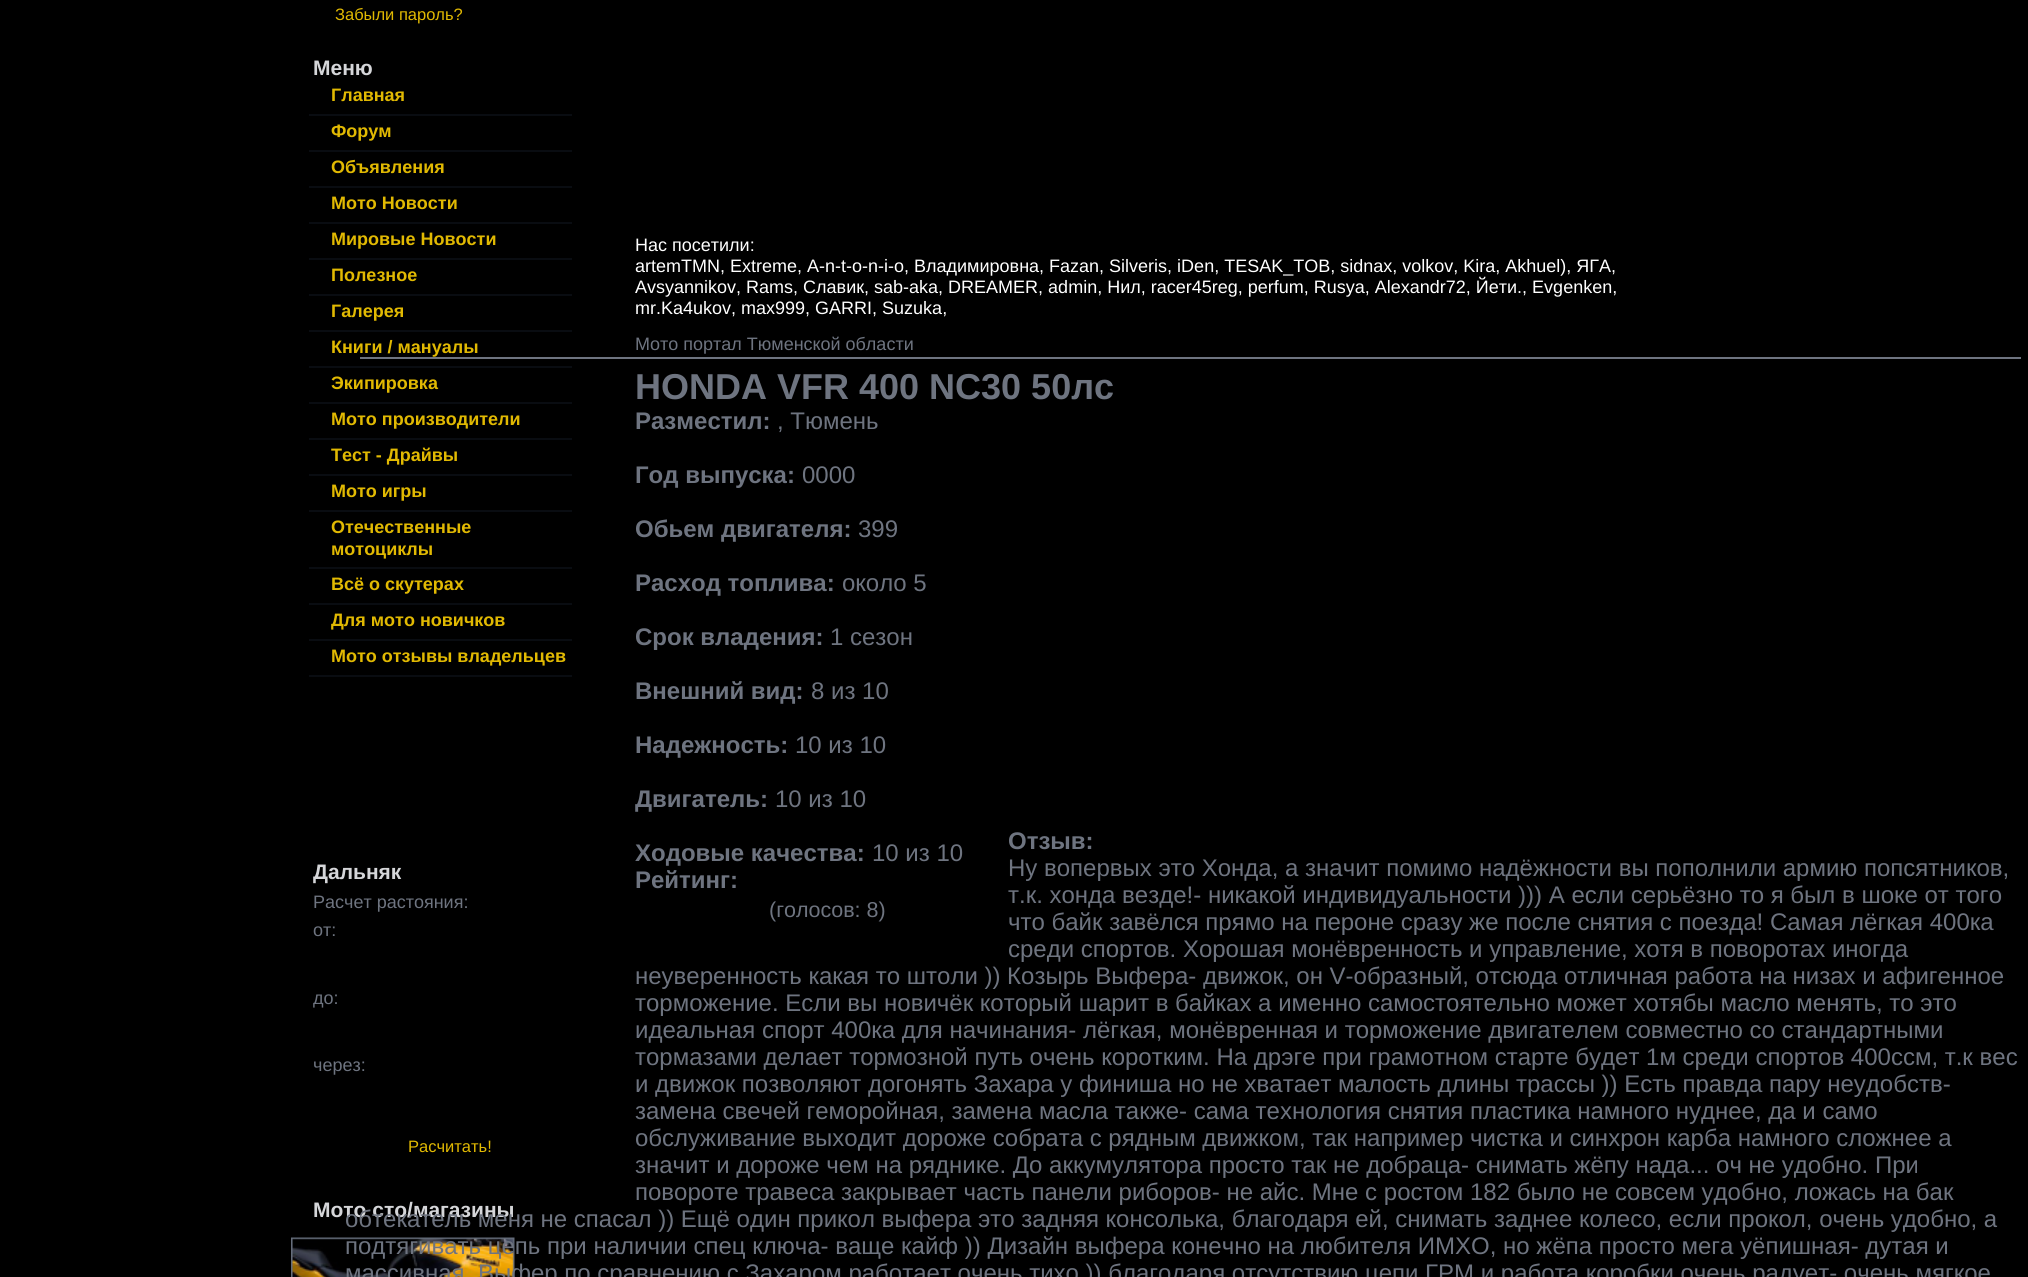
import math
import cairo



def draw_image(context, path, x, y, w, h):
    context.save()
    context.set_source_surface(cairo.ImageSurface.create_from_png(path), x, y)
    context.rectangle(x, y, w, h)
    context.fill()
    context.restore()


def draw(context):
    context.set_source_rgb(0, 0, 0)
    context.paint()
    context.set_source_rgb(9 / 255, 12 / 255, 17 / 255)
    context.rectangle(309, 114, 263, 2)
    context.fill()
    context.rectangle(309, 150, 263, 2)
    context.fill()
    context.rectangle(309, 186, 263, 2)
    context.fill()
    context.rectangle(309, 222, 263, 2)
    context.fill()
    context.rectangle(309, 258, 263, 2)
    context.fill()
    context.rectangle(309, 294, 263, 2)
    context.fill()
    context.rectangle(309, 330, 263, 2)
    context.fill()
    context.rectangle(309, 366, 263, 2)
    context.fill()
    context.rectangle(309, 402, 263, 2)
    context.fill()
    context.rectangle(309, 438, 263, 2)
    context.fill()
    context.rectangle(309, 474, 263, 2)
    context.fill()
    context.rectangle(309, 510, 263, 2)
    context.fill()
    context.rectangle(309, 567, 263, 2)
    context.fill()
    context.rectangle(309, 603, 263, 2)
    context.fill()
    context.rectangle(309, 639, 263, 2)
    context.fill()
    context.rectangle(309, 675, 263, 2)
    context.fill()
    draw_image(context, "images/1.png", 291, 1237, 224, 40)
    context.set_source_rgb(110 / 255, 116 / 255, 128 / 255)
    context.rectangle(360, 357, 1661, 2)
    context.fill()
    context.select_font_face("Liberation Sans")
    context.set_font_size(16.5)
    context.set_source_rgb(225 / 255, 185 / 255, 2 / 255)
    context.move_to(335, 20)
    context.show_text("Забыли пароль?")
    context.select_font_face("Liberation Sans", cairo.FontSlant.NORMAL, cairo.FontWeight.BOLD)
    context.set_font_size(21)
    context.set_source_rgb(213 / 255, 214 / 255, 217 / 255)
    context.move_to(313, 75)
    context.show_text("Меню")
    context.set_font_size(18)
    context.set_source_rgb(225 / 255, 185 / 255, 2 / 255)
    context.move_to(331, 101)
    context.show_text("Главная")
    context.move_to(331, 137)
    context.show_text("Форум")
    context.move_to(331, 173)
    context.show_text("Объявления")
    context.move_to(331, 209)
    context.show_text("Мото Новости")
    context.move_to(331, 245)
    context.show_text("Мировые Новости")
    context.move_to(331, 281)
    context.show_text("Полезное")
    context.move_to(331, 317)
    context.show_text("Галерея")
    context.move_to(331, 353)
    context.show_text("Книги / мануалы")
    context.move_to(331, 389)
    context.show_text("Экипировка")
    context.move_to(331, 425)
    context.show_text("Мото производители")
    context.move_to(331, 461)
    context.show_text("Тест - Драйвы")
    context.move_to(331, 497)
    context.show_text("Мото игры")
    context.move_to(331, 533)
    context.show_text("Отечественные")
    context.move_to(331, 555)
    context.show_text("мотоциклы")
    context.move_to(331, 590)
    context.show_text("Всё о скутерах")
    context.move_to(331, 626)
    context.show_text("Для мото новичков")
    context.move_to(331, 662)
    context.show_text("Мото отзывы владельцев")
    context.set_font_size(21)
    context.set_source_rgb(213 / 255, 214 / 255, 217 / 255)
    context.move_to(313, 879)
    context.show_text("Дальняк")
    context.select_font_face("Liberation Sans")
    context.set_font_size(18)
    context.set_source_rgb(110 / 255, 116 / 255, 128 / 255)
    context.move_to(313, 908)
    context.show_text("Расчет растояния:")
    context.move_to(313, 936)
    context.show_text("от:")
    context.move_to(313, 1004)
    context.show_text("до:")
    context.move_to(313, 1071)
    context.show_text("через:")
    context.set_font_size(16.5)
    context.set_source_rgb(225 / 255, 185 / 255, 2 / 255)
    context.move_to(408, 1152)
    context.show_text("Расчитать!")
    context.set_font_size(18)
    context.set_source_rgb(1, 1, 1)
    context.move_to(635, 251)
    context.show_text("Нас посетили:")
    context.move_to(635, 272)
    context.show_text("artemTMN, Extreme, A-n-t-o-n-i-o, Владимировна, Fazan, Silveris, iDen, TESAK_TOB, sidnax, volkov, Kira, Akhuel), ЯГА,")
    context.move_to(635, 293)
    context.show_text("Avsyannikov, Rams, Славик, sab-aka, DREAMER, admin, Нил, racer45reg, perfum, Rusya, Alexandr72, Йети., Evgenken,")
    context.move_to(635, 314)
    context.show_text("mr.Ka4ukov, max999, GARRI, Suzuka,")
    context.select_font_face("Liberation Sans", cairo.FontSlant.NORMAL, cairo.FontWeight.BOLD)
    context.set_font_size(21)
    context.set_source_rgb(213 / 255, 214 / 255, 217 / 255)
    context.move_to(313, 1217)
    context.show_text("Мото сто/магазины")
    context.select_font_face("Liberation Sans")
    context.set_font_size(18)
    context.set_source_rgb(110 / 255, 116 / 255, 128 / 255)
    context.move_to(635, 350)
    context.show_text("Мото портал Тюменской области")
    context.select_font_face("Liberation Sans", cairo.FontSlant.NORMAL, cairo.FontWeight.BOLD)
    context.set_font_size(36)
    context.move_to(635, 399)
    context.show_text("HONDA VFR 400 NC30 50лс")
    context.set_font_size(24)
    context.move_to(635, 429)
    context.show_text("Разместил:")
    context.select_font_face("Liberation Sans")
    context.move_to(777, 429)
    context.show_text(", Тюмень")
    context.select_font_face("Liberation Sans", cairo.FontSlant.NORMAL, cairo.FontWeight.BOLD)
    context.move_to(635, 483)
    context.show_text("Год выпуска:")
    context.select_font_face("Liberation Sans")
    context.move_to(802, 483)
    context.show_text("0000")
    context.select_font_face("Liberation Sans", cairo.FontSlant.NORMAL, cairo.FontWeight.BOLD)
    context.move_to(635, 537)
    context.show_text("Обьем двигателя:")
    context.select_font_face("Liberation Sans")
    context.move_to(858, 537)
    context.show_text("399")
    context.select_font_face("Liberation Sans", cairo.FontSlant.NORMAL, cairo.FontWeight.BOLD)
    context.move_to(635, 591)
    context.show_text("Расход топлива:")
    context.select_font_face("Liberation Sans")
    context.move_to(842, 591)
    context.show_text("около 5")
    context.select_font_face("Liberation Sans", cairo.FontSlant.NORMAL, cairo.FontWeight.BOLD)
    context.move_to(635, 645)
    context.show_text("Срок владения:")
    context.select_font_face("Liberation Sans")
    context.move_to(830, 645)
    context.show_text("1 сезон")
    context.select_font_face("Liberation Sans", cairo.FontSlant.NORMAL, cairo.FontWeight.BOLD)
    context.move_to(635, 699)
    context.show_text("Внешний вид:")
    context.select_font_face("Liberation Sans")
    context.move_to(811, 699)
    context.show_text("8 из 10")
    context.select_font_face("Liberation Sans", cairo.FontSlant.NORMAL, cairo.FontWeight.BOLD)
    context.move_to(635, 753)
    context.show_text("Надежность:")
    context.select_font_face("Liberation Sans")
    context.move_to(795, 753)
    context.show_text("10 из 10")
    context.select_font_face("Liberation Sans", cairo.FontSlant.NORMAL, cairo.FontWeight.BOLD)
    context.move_to(635, 807)
    context.show_text("Двигатель:")
    context.select_font_face("Liberation Sans")
    context.move_to(775, 807)
    context.show_text("10 из 10")
    context.select_font_face("Liberation Sans", cairo.FontSlant.NORMAL, cairo.FontWeight.BOLD)
    context.move_to(635, 861)
    context.show_text("Ходовые качества:")
    context.select_font_face("Liberation Sans")
    context.move_to(872, 861)
    context.show_text("10 из 10")
    context.select_font_face("Liberation Sans", cairo.FontSlant.NORMAL, cairo.FontWeight.BOLD)
    context.move_to(635, 888)
    context.show_text("Рейтинг:")
    context.select_font_face("Liberation Sans")
    context.set_font_size(21.5)
    context.move_to(769, 917)
    context.show_text("(голосов: 8)")
    context.select_font_face("Liberation Sans", cairo.FontSlant.NORMAL, cairo.FontWeight.BOLD)
    context.set_font_size(24)
    context.move_to(1008, 849)
    context.show_text("Отзыв:")
    context.select_font_face("Liberation Sans")
    context.move_to(1008, 876)
    context.show_text("Ну вопервых это Хонда, а значит помимо надёжности вы пополнили армию попсятников,")
    context.move_to(1008, 903)
    context.show_text("т.к. хонда везде!- никакой индивидуальности ))) А если серьёзно то я был в шоке от того")
    context.move_to(1008, 930)
    context.show_text("что байк завёлся прямо на пероне сразу же после снятия с поезда! Самая лёгкая 400ка")
    context.move_to(1008, 957)
    context.show_text("среди спортов. Хорошая монёвренность и управление, хотя в поворотах иногда")
    context.move_to(635, 984)
    context.show_text("неуверенность какая то штоли )) Козырь Выфера- движок, он V-образный, отсюда отличная работа на низах и афигенное")
    context.move_to(635, 1011)
    context.show_text("торможение. Если вы новичёк который шарит в байках а именно самостоятельно может хотябы масло менять, то это")
    context.move_to(635, 1038)
    context.show_text("идеальная спорт 400ка для начинания- лёгкая, монёвренная и торможение двигателем совместно со стандартными")
    context.move_to(635, 1065)
    context.show_text("тормазами делает тормозной путь очень коротким. На дрэге при грамотном старте будет 1м среди спортов 400ссм, т.к вес")
    context.move_to(635, 1092)
    context.show_text("и движок позволяют догонять Захара у финиша но не хватает малость длины трассы )) Есть правда пару неудобств-")
    context.move_to(635, 1119)
    context.show_text("замена свечей геморойная, замена масла также- сама технология снятия пластика намного нуднее, да и само")
    context.move_to(635, 1146)
    context.show_text("обслуживание выходит дороже собрата с рядным движком, так например чистка и синхрон карба намного сложнее а")
    context.move_to(635, 1173)
    context.show_text("значит и дороже чем на ряднике. До аккумулятора просто так не добраца- снимать жёпу нада... оч не удобно. При")
    context.move_to(635, 1200)
    context.show_text("повороте травеса закрывает часть панели риборов- не айс. Мне с ростом 182 было не совсем удобно, ложась на бак")
    context.move_to(345, 1227)
    context.show_text("обтекатель меня не спасал )) Ещё один прикол выфера это задняя консолька, благодаря ей, снимать заднее колесо, если прокол, очень удобно, а")
    context.move_to(345, 1254)
    context.show_text("подтягивать цепь при наличии спец ключа- ваще кайф )) Дизайн выфера конечно на любителя ИМХО, но жёпа просто мега уёпишная- дутая и")
    context.move_to(345, 1281)
    context.show_text("массивная. Выфер по сравнению с Захаром работает очень тихо )) благодаря отсутствию цепи ГРМ и работа коробки очень радует- очень мягкое")


surface = cairo.ImageSurface(cairo.Format.RGB24, 2028, 1277)
context = cairo.Context(surface)
options = cairo.FontOptions()
options.set_hint_metrics(cairo.HintMetrics.OFF)
options.set_hint_style(cairo.HintStyle.NONE)
context.set_font_options(options)
context.set_miter_limit(4)
draw(context)
surface.write_to_png("out.png")
